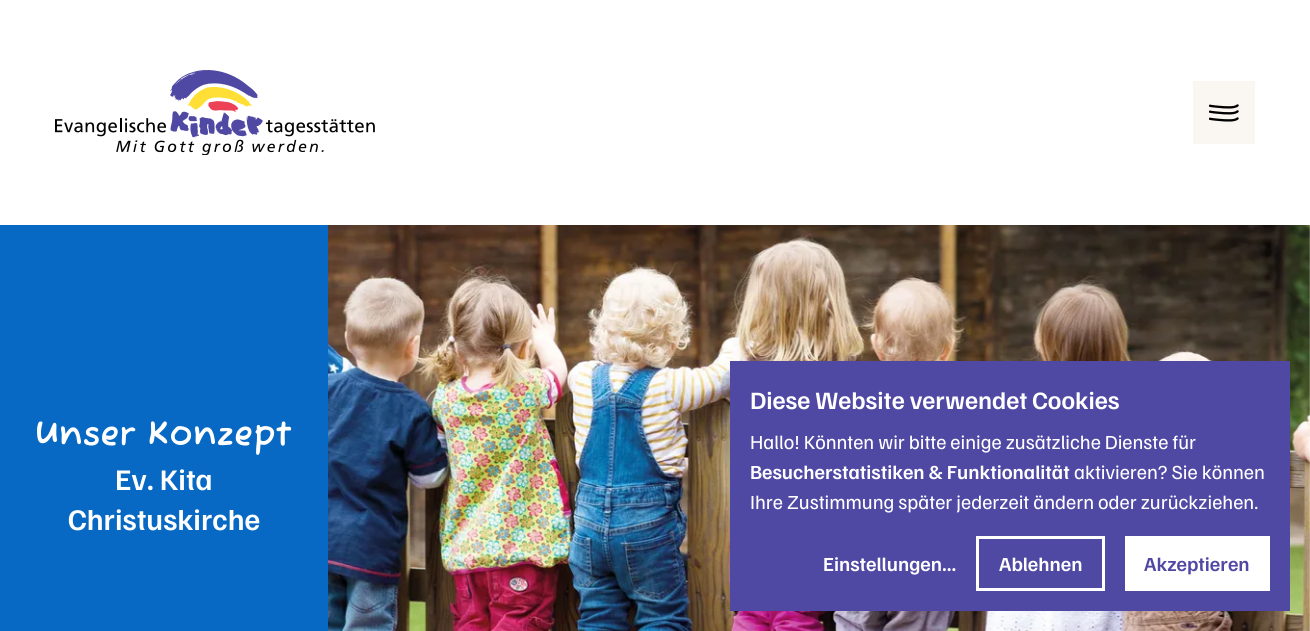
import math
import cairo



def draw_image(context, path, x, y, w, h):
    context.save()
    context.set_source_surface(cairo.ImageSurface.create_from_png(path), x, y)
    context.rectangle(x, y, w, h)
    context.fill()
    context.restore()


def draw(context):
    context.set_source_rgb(1, 1, 1)
    context.paint()
    draw_image(context, "images/1.png", 55, 70, 320, 85)
    context.set_source_rgb(250 / 255, 247 / 255, 243 / 255)
    context.rectangle(1193, 81, 62, 63)
    context.fill()
    draw_image(context, "images/2.png", 1209, 104, 30, 18)
    context.set_source_rgb(7 / 255, 105 / 255, 195 / 255)
    context.rectangle(0, 225, 328, 406)
    context.fill()
    draw_image(context, "images/3.png", 328, 225, 982, 406)
    context.set_source_rgb(80 / 255, 73 / 255, 164 / 255)
    context.rectangle(730, 361, 560, 250)
    context.fill()
    context.rectangle(977.5, 537.5, 126, 52)
    context.set_source_rgb(1, 1, 1)
    context.set_line_width(3)
    context.stroke()
    context.rectangle(1125, 536, 145, 55)
    context.fill()
    context.select_font_face("Fuzzy Bubbles", cairo.FontSlant.NORMAL, cairo.FontWeight.BOLD)
    context.set_font_size(35)
    context.move_to(35, 445)
    context.show_text("Unser Konzept")
    context.select_font_face("Familjen Grotesk SemiBold")
    context.set_font_size(30)
    context.move_to(115, 490)
    context.show_text("Ev. Kita")
    context.move_to(68, 530)
    context.show_text("Christuskirche")
    context.set_font_size(25)
    context.move_to(750, 409)
    context.show_text("Diese Website verwendet Cookies")
    context.select_font_face("Familjen Grotesk")
    context.set_font_size(20)
    context.move_to(750, 449)
    context.show_text("Hallo! Könnten wir bitte einige zusätzliche Dienste für")
    context.select_font_face("Familjen Grotesk SemiBold")
    context.move_to(750, 479)
    context.show_text("Besucherstatistiken & Funktionalität")
    context.select_font_face("Familjen Grotesk")
    context.move_to(1074, 479)
    context.show_text("aktivieren? Sie können")
    context.move_to(750, 509)
    context.show_text("Ihre Zustimmung später jederzeit ändern oder zurückziehen.")
    context.select_font_face("Familjen Grotesk SemiBold")
    context.move_to(823, 571)
    context.show_text("Einstellungen...")
    context.move_to(999, 571)
    context.show_text("Ablehnen")
    context.set_source_rgb(80 / 255, 73 / 255, 164 / 255)
    context.move_to(1144, 571)
    context.show_text("Akzeptieren")


surface = cairo.ImageSurface(cairo.Format.RGB24, 1310, 631)
context = cairo.Context(surface)
options = cairo.FontOptions()
options.set_hint_metrics(cairo.HintMetrics.OFF)
options.set_hint_style(cairo.HintStyle.NONE)
context.set_font_options(options)
context.set_miter_limit(4)
draw(context)
surface.write_to_png("out.png")
